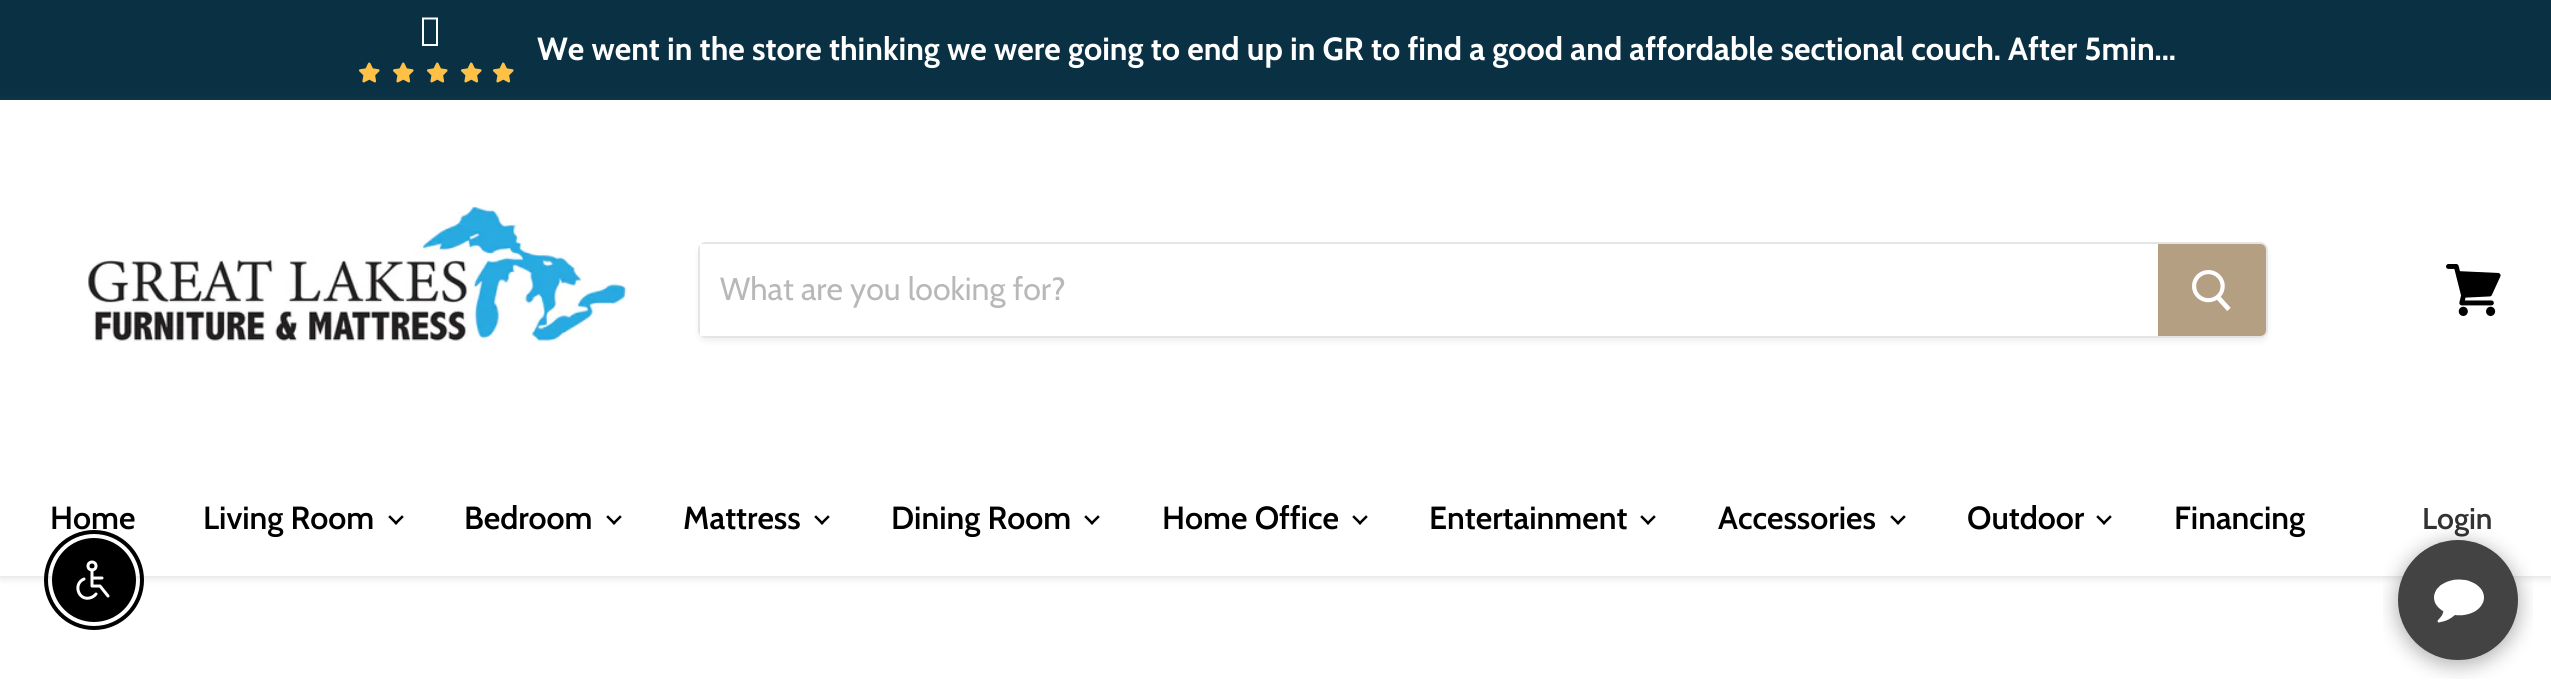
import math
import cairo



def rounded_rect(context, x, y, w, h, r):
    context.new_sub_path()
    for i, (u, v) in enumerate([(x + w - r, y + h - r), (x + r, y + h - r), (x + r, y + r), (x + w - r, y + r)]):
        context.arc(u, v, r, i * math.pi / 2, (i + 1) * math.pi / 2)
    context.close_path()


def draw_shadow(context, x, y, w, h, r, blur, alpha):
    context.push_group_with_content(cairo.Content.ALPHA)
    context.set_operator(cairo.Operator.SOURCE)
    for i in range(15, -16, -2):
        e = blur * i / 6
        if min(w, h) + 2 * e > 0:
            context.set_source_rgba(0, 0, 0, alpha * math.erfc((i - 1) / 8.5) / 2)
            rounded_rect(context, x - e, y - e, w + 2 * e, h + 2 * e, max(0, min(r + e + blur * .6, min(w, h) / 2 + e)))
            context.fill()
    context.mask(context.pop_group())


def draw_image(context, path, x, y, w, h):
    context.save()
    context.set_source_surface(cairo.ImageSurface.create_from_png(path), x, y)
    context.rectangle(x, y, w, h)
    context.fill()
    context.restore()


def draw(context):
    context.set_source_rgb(1, 1, 1)
    context.paint()
    context.set_source_rgb(9 / 255, 48 / 255, 67 / 255)
    context.rectangle(0, 0, 2551, 100)
    context.fill()
    context.set_source_rgb(1, 1, 1)
    context.new_path()
    context.move_to(422, 46)
    context.line_to(422, 17.5)
    context.line_to(438, 17.5)
    context.line_to(438, 46)
    context.close_path()
    context.move_to(424, 44)
    context.line_to(436, 44)
    context.line_to(436, 19.5)
    context.line_to(424, 19.5)
    context.close_path()
    context.fill()
    draw_image(context, "images/1.png", 359, 62, 21, 21)
    draw_image(context, "images/1.png", 393, 62, 21, 21)
    draw_image(context, "images/1.png", 427, 62, 21, 21)
    draw_image(context, "images/1.png", 461, 62, 21, 21)
    draw_image(context, "images/1.png", 493, 62, 21, 21)
    context.save()
    context.set_fill_rule(cairo.FillRule.EVEN_ODD)
    context.new_path()
    context.move_to(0, 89)
    context.line_to(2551, 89)
    context.line_to(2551, 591)
    context.line_to(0, 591)
    context.close_path()
    context.move_to(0, 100)
    context.line_to(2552, 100)
    context.line_to(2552, 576)
    context.line_to(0, 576)
    context.close_path()
    context.clip()
    context.set_source_rgb(128 / 255, 128 / 255, 128 / 255)
    draw_shadow(context, 0, 102, 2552, 476, 0, 4, 0.25)
    context.restore()
    draw_image(context, "images/2.png", 88, 206, 539, 136)
    context.save()
    context.set_fill_rule(cairo.FillRule.EVEN_ODD)
    context.new_path()
    context.move_to(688, 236)
    context.line_to(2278, 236)
    context.line_to(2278, 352)
    context.line_to(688, 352)
    context.close_path()
    context.move_to(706, 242)
    context.line_to(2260, 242)
    context.curve_to(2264.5, 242, 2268, 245.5, 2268, 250)
    context.line_to(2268, 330)
    context.curve_to(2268, 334.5, 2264.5, 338, 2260, 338)
    context.line_to(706, 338)
    context.curve_to(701.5, 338, 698, 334.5, 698, 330)
    context.line_to(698, 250)
    context.curve_to(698, 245.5, 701.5, 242, 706, 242)
    context.close_path()
    context.clip()
    context.set_source_rgb(128 / 255, 128 / 255, 128 / 255)
    draw_shadow(context, 698, 246, 1570, 96, 8, 3, 0.11)
    context.restore()
    rounded_rect(context, 699, 243, 1568, 94, 7)
    context.set_source_rgba(128 / 255, 128 / 255, 128 / 255, 0.2)
    context.stroke()
    context.set_source_rgb(1, 1, 1)
    context.rectangle(700, 244, 5, 92)
    context.fill()
    context.set_source_rgb(181 / 255, 159 / 255, 130 / 255)
    context.new_path()
    context.move_to(2159, 245)
    context.line_to(2260, 245)
    context.curve_to(2263, 245, 2265, 247, 2265, 250)
    context.line_to(2265, 330)
    context.curve_to(2265, 333, 2263, 335, 2260, 335)
    context.line_to(2159, 335)
    context.close_path()
    context.fill_preserve()
    context.stroke()
    draw_image(context, "images/3.png", 2192, 270, 39, 41)
    draw_image(context, "images/4.png", 2446, 264, 55, 52)
    draw_image(context, "images/5.png", 388, 515, 16, 10)
    draw_image(context, "images/5.png", 606, 515, 16, 10)
    draw_image(context, "images/5.png", 814, 515, 16, 10)
    draw_image(context, "images/5.png", 1084, 515, 16, 10)
    draw_image(context, "images/5.png", 1352, 515, 16, 10)
    draw_image(context, "images/5.png", 1640, 515, 16, 10)
    draw_image(context, "images/5.png", 1890, 515, 16, 10)
    draw_image(context, "images/5.png", 2096, 515, 16, 10)
    context.arc(94, 580, 48, 0, 2 * math.pi)
    context.set_source_rgb(0, 0, 0)
    context.set_line_width(4)
    context.stroke()
    context.arc(94, 580, 41, 0, 2 * math.pi)
    context.fill_preserve()
    context.set_line_width(2)
    context.stroke()
    context.arc(92, 566, 4, 0, 2 * math.pi)
    context.set_source_rgb(1, 1, 1)
    context.set_line_width(3)
    context.stroke()
    context.new_path()
    context.move_to(92, 570)
    context.line_to(92, 586)
    context.line_to(100, 586)
    context.line_to(108, 596)
    context.move_to(92, 578)
    context.line_to(102, 578)
    context.move_to(84, 579)
    context.curve_to(73, 583.5, 78, 600.5, 89.5, 598)
    context.curve_to(92, 597.5, 94.5, 596, 96, 594)
    context.set_line_cap(cairo.LineCap.ROUND)
    context.set_line_join(cairo.LineJoin.ROUND)
    context.stroke()
    context.select_font_face("Cabin", cairo.FontSlant.NORMAL, cairo.FontWeight.BOLD)
    context.set_font_size(32)
    context.move_to(537, 60)
    context.show_text("We went in the store thinking we were going to end up in GR to find a good and affordable sectional couch. After 5min...")
    context.select_font_face("Cabin")
    context.set_source_rgb(184 / 255, 184 / 255, 184 / 255)
    context.move_to(720, 300)
    context.show_text("What are you looking for?")
    context.select_font_face("Cabin SemiBold")
    context.set_source_rgb(0, 0, 0)
    context.move_to(50, 529)
    context.show_text("Home")
    context.move_to(203, 529)
    context.show_text("Living Room")
    context.move_to(464, 529)
    context.show_text("Bedroom")
    context.move_to(683, 529)
    context.show_text("Mattress")
    context.move_to(891, 529)
    context.show_text("Dining Room")
    context.move_to(1162, 529)
    context.show_text("Home Office")
    context.move_to(1429, 529)
    context.show_text("Entertainment")
    context.move_to(1718, 529)
    context.show_text("Accessories")
    context.move_to(1967, 529)
    context.show_text("Outdoor")
    context.move_to(2174, 529)
    context.show_text("Financing")
    context.set_font_size(30)
    context.set_source_rgb(51 / 255, 51 / 255, 51 / 255)
    context.move_to(2422, 529)
    context.show_text("Login")
    draw_image(context, "images/6.png", 2383, 529, 150, 150)


surface = cairo.ImageSurface(cairo.Format.RGB24, 2551, 693)
context = cairo.Context(surface)
options = cairo.FontOptions()
options.set_hint_metrics(cairo.HintMetrics.OFF)
options.set_hint_style(cairo.HintStyle.NONE)
context.set_font_options(options)
context.set_miter_limit(4)
draw(context)
surface.write_to_png("out.png")
